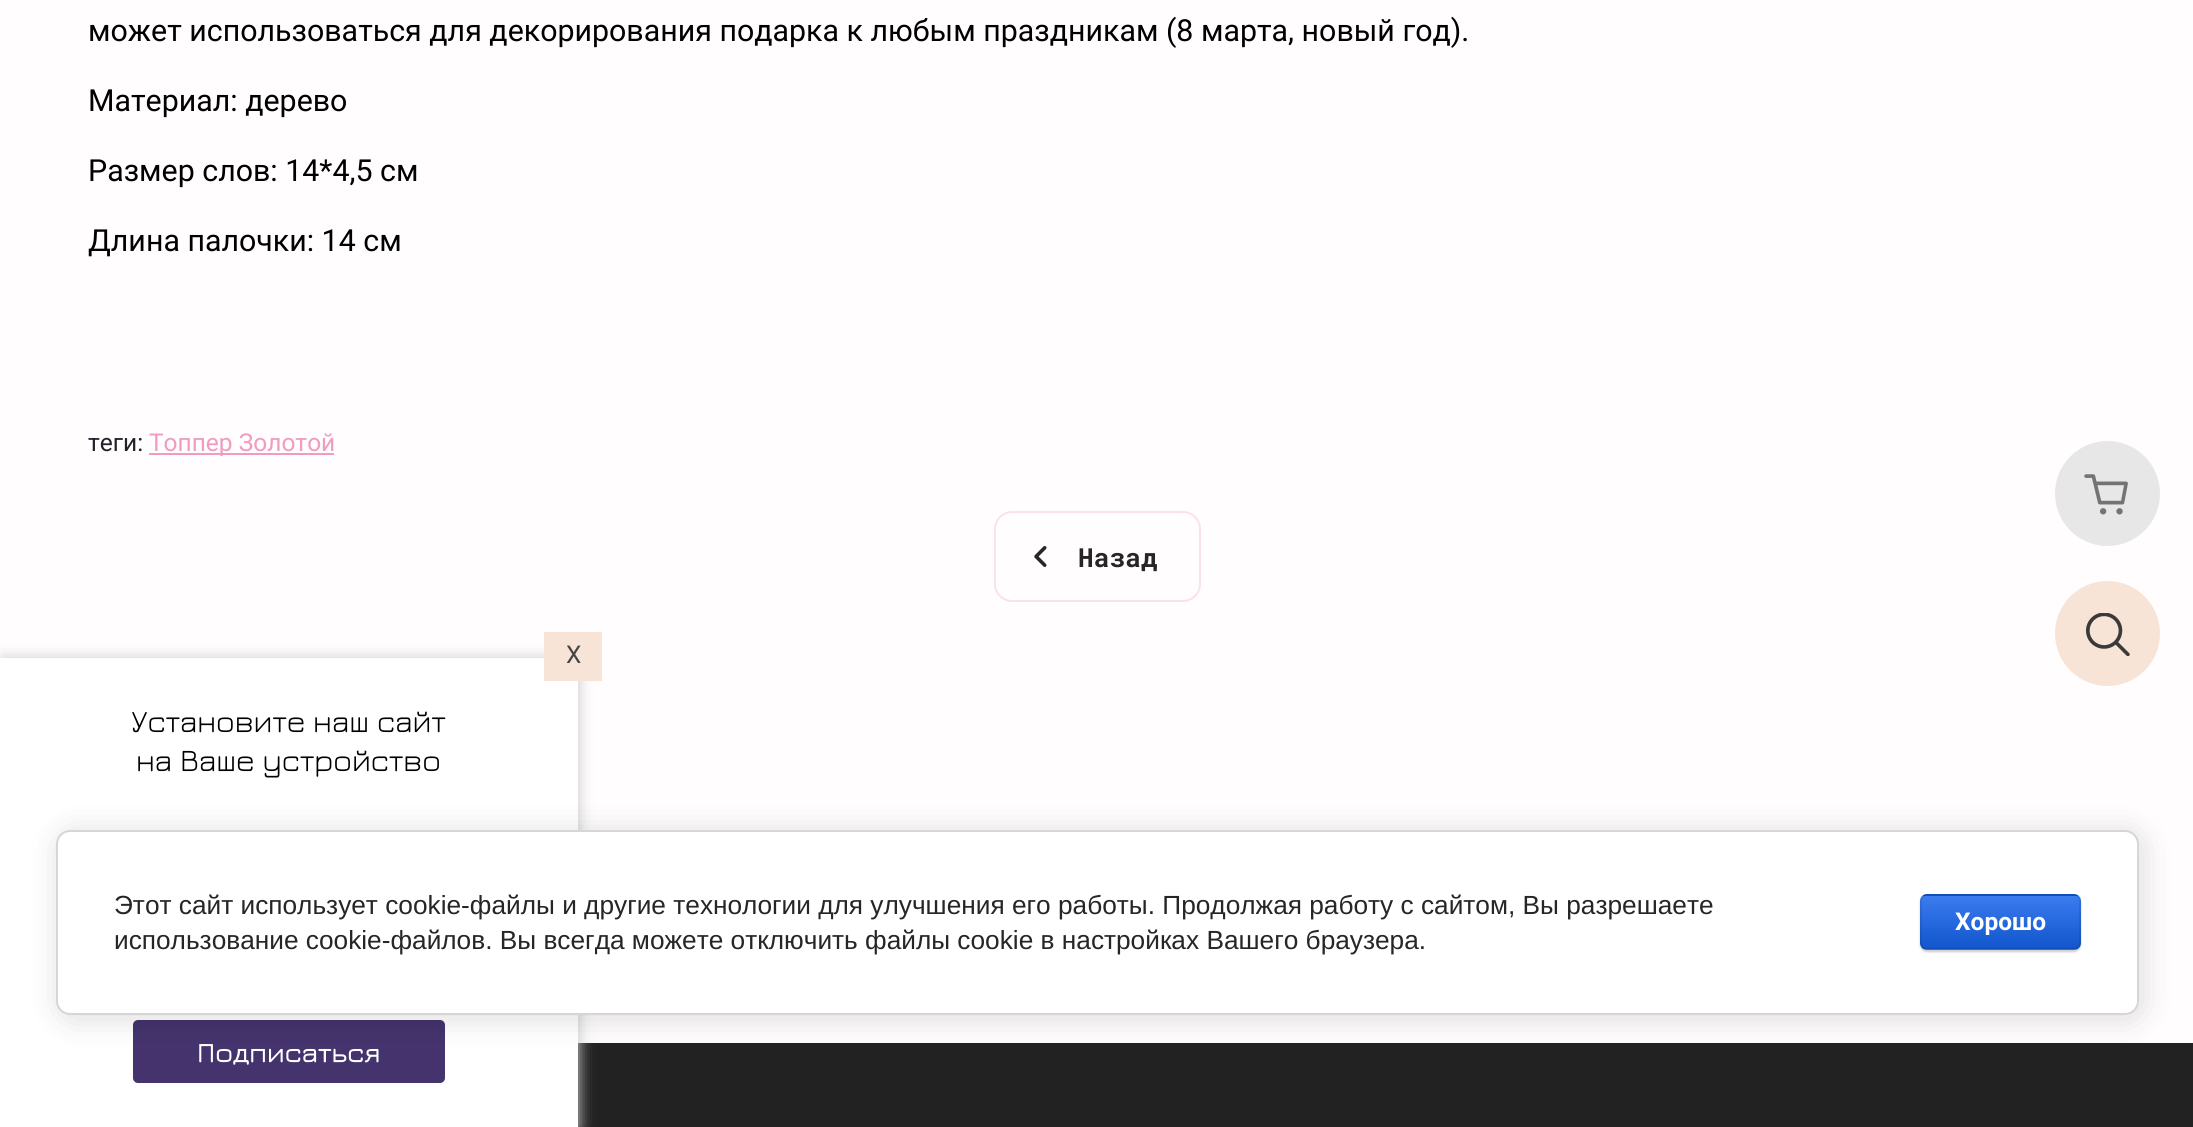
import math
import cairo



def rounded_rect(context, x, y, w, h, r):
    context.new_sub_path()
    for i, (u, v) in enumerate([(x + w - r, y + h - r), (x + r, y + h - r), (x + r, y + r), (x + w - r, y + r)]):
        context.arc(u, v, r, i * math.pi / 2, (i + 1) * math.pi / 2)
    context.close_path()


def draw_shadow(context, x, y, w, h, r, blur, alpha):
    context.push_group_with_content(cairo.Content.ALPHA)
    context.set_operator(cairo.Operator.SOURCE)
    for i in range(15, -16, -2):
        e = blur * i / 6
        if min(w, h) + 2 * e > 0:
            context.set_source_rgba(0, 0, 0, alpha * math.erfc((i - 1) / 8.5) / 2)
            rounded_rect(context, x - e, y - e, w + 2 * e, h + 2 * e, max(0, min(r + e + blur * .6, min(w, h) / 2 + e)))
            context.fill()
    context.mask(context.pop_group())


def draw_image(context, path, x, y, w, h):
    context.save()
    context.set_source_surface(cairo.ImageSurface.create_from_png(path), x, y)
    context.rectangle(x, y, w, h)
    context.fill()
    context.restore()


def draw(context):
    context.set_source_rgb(1, 253 / 255, 253 / 255)
    context.paint()
    context.set_source_rgb(240 / 255, 155 / 255, 191 / 255)
    context.rectangle(149, 453, 185, 2)
    context.fill()
    draw_image(context, "images/1.png", 1034, 546, 13, 21)
    rounded_rect(context, 995, 512, 205, 89, 17)
    context.set_source_rgb(251 / 255, 225 / 255, 236 / 255)
    context.stroke()
    context.set_source_rgb(231 / 255, 231 / 255, 231 / 255)
    context.arc(2107.5, 493.5, 52.5, 0, 2 * math.pi)
    context.fill()
    draw_image(context, "images/2.png", 2084, 474, 44, 41)
    context.set_source_rgb(247 / 255, 228 / 255, 215 / 255)
    context.arc(2107.5, 633.5, 52.5, 0, 2 * math.pi)
    context.fill()
    draw_image(context, "images/3.png", 2086, 613, 44, 43)
    context.set_source_rgb(34 / 255, 34 / 255, 34 / 255)
    context.rectangle(578, 1043, 1615, 84)
    context.fill()
    context.set_source_rgb(204 / 255, 204 / 255, 204 / 255)
    draw_shadow(context, 2, 658, 577, 469, 0, 7, 1)
    context.set_source_rgb(1, 1, 1)
    context.rectangle(0, 658, 578, 469)
    context.fill()
    context.set_source_rgb(247 / 255, 228 / 255, 215 / 255)
    context.rectangle(544, 632, 58, 49)
    context.fill()
    context.set_source_rgb(68 / 255, 51 / 255, 109 / 255)
    rounded_rect(context, 133, 1020, 312, 63, 5)
    context.fill()
    context.set_source_rgb(0, 0, 0)
    draw_shadow(context, 60, 833, 2082, 186, 14, 16, 0.14)
    context.set_source_rgb(1, 1, 1)
    rounded_rect(context, 57, 831, 2081, 183, 13)
    context.fill_preserve()
    context.set_source_rgb(214 / 255, 214 / 255, 214 / 255)
    context.stroke()
    context.set_source_rgb(0, 0, 0)
    draw_shadow(context, 1920, 896, 161, 56, 7, 1, 0.2)
    context.save()
    rounded_rect(context, 1920, 894, 161, 56, 7)
    context.clip()
    gradient = cairo.LinearGradient(2000, 844, 2000, 896)
    gradient.add_color_stop_rgba(0, 59 / 255, 124 / 255, 239 / 255, 1)
    gradient.add_color_stop_rgba(1, 17 / 255, 85 / 255, 204 / 255, 1)
    context.set_source(gradient)
    context.rectangle(1920, 894, 161, 2)
    context.fill()
    gradient = cairo.LinearGradient(2000, 896, 2000, 949)
    gradient.add_color_stop_rgba(0, 59 / 255, 124 / 255, 239 / 255, 1)
    gradient.add_color_stop_rgba(1, 17 / 255, 85 / 255, 204 / 255, 1)
    context.set_source(gradient)
    context.rectangle(1920, 896, 161, 53)
    context.fill()
    gradient = cairo.LinearGradient(2000, 949, 2000, 1001)
    gradient.add_color_stop_rgba(0, 59 / 255, 124 / 255, 239 / 255, 1)
    gradient.add_color_stop_rgba(1, 17 / 255, 85 / 255, 204 / 255, 1)
    context.set_source(gradient)
    context.rectangle(1920, 949, 161, 1)
    context.fill()
    context.restore()
    rounded_rect(context, 1921, 895, 159, 54, 6)
    context.set_source_rgba(0, 0, 0, 0.1)
    context.stroke()
    context.select_font_face("Roboto")
    context.set_font_size(30.35)
    context.set_source_rgb(0, 0, 0)
    context.move_to(88, 41)
    context.show_text("может использоваться для декорирования подарка к любым праздникам (8 марта, новый год).")
    context.move_to(88, 111)
    context.show_text("Материал: дерево")
    context.move_to(88, 181)
    context.show_text("Размер слов: 14*4,5 см")
    context.move_to(88, 251)
    context.show_text("Длина палочки: 14 см")
    context.set_font_size(24.5)
    context.set_source_rgb(34 / 255, 32 / 255, 42 / 255)
    context.move_to(88, 451)
    context.show_text("теги:")
    context.set_source_rgb(240 / 255, 155 / 255, 191 / 255)
    context.move_to(149, 451)
    context.show_text("Топпер Золотой")
    context.select_font_face("Roboto Mono", cairo.FontSlant.NORMAL, cairo.FontWeight.BOLD)
    context.set_font_size(26.25)
    context.set_source_rgb(38 / 255, 38 / 255, 38 / 255)
    context.move_to(1078, 567)
    context.show_text("Назад")
    context.select_font_face("Roboto")
    context.set_font_size(24.5)
    context.set_source_rgb(70 / 255, 69 / 255, 68 / 255)
    context.move_to(566, 663)
    context.show_text("X")
    context.select_font_face("Jura")
    context.set_font_size(31.5)
    context.set_source_rgb(0, 0, 0)
    context.move_to(131, 732)
    context.show_text("Установите наш сайт")
    context.move_to(136, 771)
    context.show_text("на Ваше устройство")
    context.select_font_face("Jura SemiBold")
    context.set_font_size(28)
    context.set_source_rgb(1, 1, 1)
    context.move_to(197, 1062)
    context.show_text("Подписаться")
    context.select_font_face("Liberation Sans")
    context.set_font_size(26.25)
    context.set_source_rgb(38 / 255, 38 / 255, 38 / 255)
    context.move_to(114, 914)
    context.show_text("Этот сайт использует cookie-файлы и другие технологии для улучшения его работы. Продолжая работу с сайтом, Вы разрешаете")
    context.move_to(114, 949)
    context.show_text("использование cookie-файлов. Вы всегда можете отключить файлы cookie в настройках Вашего браузера.")
    context.select_font_face("Roboto", cairo.FontSlant.NORMAL, cairo.FontWeight.BOLD)
    context.set_font_size(24.5)
    context.set_source_rgb(1, 1, 1)
    context.move_to(1955, 930)
    context.show_text("Хорошо")


surface = cairo.ImageSurface(cairo.Format.RGB24, 2193, 1127)
context = cairo.Context(surface)
options = cairo.FontOptions()
options.set_hint_metrics(cairo.HintMetrics.OFF)
options.set_hint_style(cairo.HintStyle.NONE)
context.set_font_options(options)
context.set_miter_limit(4)
draw(context)
surface.write_to_png("out.png")
